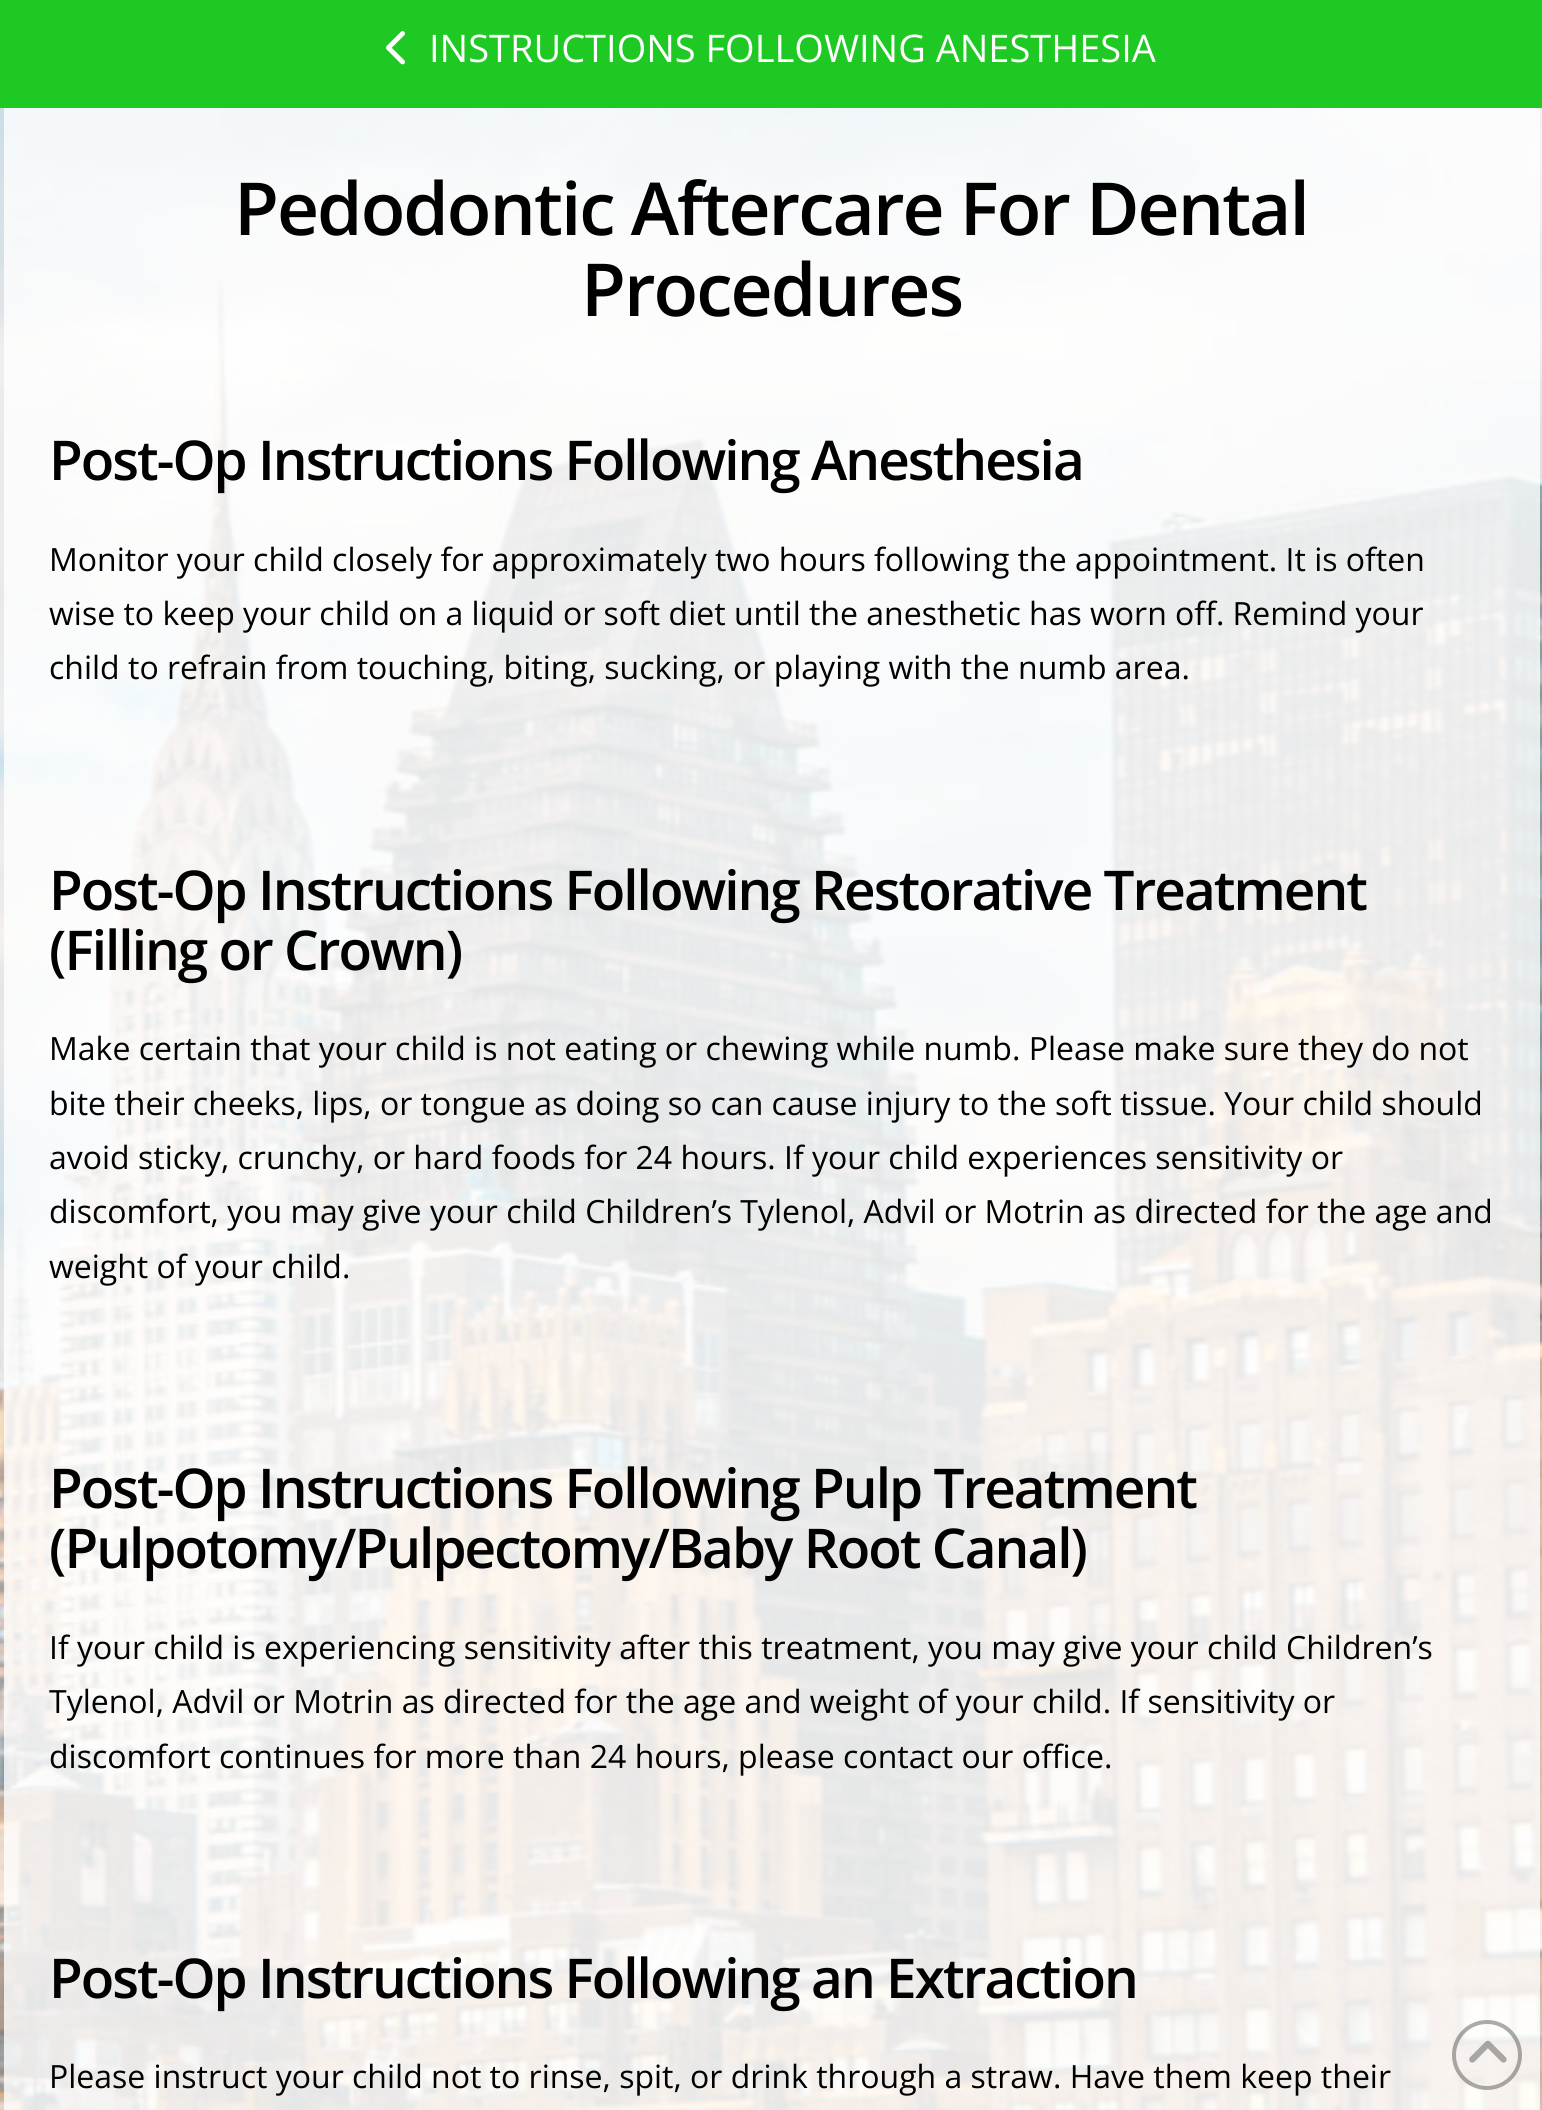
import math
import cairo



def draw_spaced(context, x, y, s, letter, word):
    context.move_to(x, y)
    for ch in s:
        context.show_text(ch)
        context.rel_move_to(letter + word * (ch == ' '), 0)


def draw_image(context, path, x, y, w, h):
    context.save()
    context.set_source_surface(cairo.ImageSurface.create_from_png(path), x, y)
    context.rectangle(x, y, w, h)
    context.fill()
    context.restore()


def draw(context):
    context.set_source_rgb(1, 1, 1)
    context.paint()
    context.set_source_rgb(31 / 255, 201 / 255, 35 / 255)
    context.rectangle(0, 0, 1542, 108)
    context.fill()
    draw_image(context, "images/1.png", 386, 31, 19, 34)
    draw_image(context, "images/3.png", 0, 108, 1542, 2002)
    context.set_source_rgba(1, 1, 1, 0.8)
    context.rectangle(4, 108, 1536, 282)
    context.fill()
    context.rectangle(4, 390, 1536, 388)
    context.fill()
    context.rectangle(4, 778, 1536, 598)
    context.fill()
    context.rectangle(4, 1376, 1536, 490)
    context.fill()
    context.rectangle(4, 1866, 1536, 244)
    context.fill()
    context.arc(1487, 2055, 33, 0, 2 * math.pi)
    context.set_source_rgba(39 / 255, 39 / 255, 39 / 255, 0.38)
    context.set_line_width(4)
    context.stroke()
    draw_image(context, "images/2.png", 1469, 2040, 38, 23)
    context.select_font_face("Open Sans")
    context.set_font_size(38)
    context.set_source_rgb(1, 1, 1)
    context.move_to(429, 62)
    context.show_text("INSTRUCTIONS FOLLOWING ANESTHESIA")
    context.select_font_face("Open Sans SemiBold")
    context.set_font_size(73.1)
    context.set_source_rgb(0, 0, 0)
    draw_spaced(context, 234, 235, "Pedodontic Aftercare For Dental", -1.97, 0)
    draw_spaced(context, 581, 316, "Procedures", -1.97, 0)
    context.set_font_size(54.85)
    draw_spaced(context, 49, 480, "Post-Op Instructions Following Anesthesia", -1.97, 0)
    context.select_font_face("Open Sans")
    context.set_font_size(32)
    context.move_to(49, 571)
    context.show_text("Monitor your child closely for approximately two hours following the appointment. It is often")
    context.move_to(49, 625)
    context.show_text("wise to keep your child on a liquid or soft diet until the anesthetic has worn off. Remind your")
    context.move_to(49, 679)
    context.show_text("child to refrain from touching, biting, sucking, or playing with the numb area.")
    context.select_font_face("Open Sans SemiBold")
    context.set_font_size(54.85)
    draw_spaced(context, 49, 910, "Post-Op Instructions Following Restorative Treatment", -1.97, 0)
    draw_spaced(context, 49, 970, "(Filling or Crown)", -1.97, 0)
    context.select_font_face("Open Sans")
    context.set_font_size(32)
    context.move_to(49, 1060)
    context.show_text("Make certain that your child is not eating or chewing while numb. Please make sure they do not")
    context.move_to(49, 1115)
    context.show_text("bite their cheeks, lips, or tongue as doing so can cause injury to the soft tissue. Your child should")
    context.move_to(49, 1169)
    context.show_text("avoid sticky, crunchy, or hard foods for 24 hours. If your child experiences sensitivity or")
    context.move_to(49, 1223)
    context.show_text("discomfort, you may give your child Children’s Tylenol, Advil or Motrin as directed for the age and")
    context.move_to(49, 1278)
    context.show_text("weight of your child.")
    context.select_font_face("Open Sans SemiBold")
    context.set_font_size(54.85)
    draw_spaced(context, 49, 1508, "Post-Op Instructions Following Pulp Treatment", -1.97, 0)
    draw_spaced(context, 49, 1568, "(Pulpotomy/Pulpectomy/Baby Root Canal)", -1.97, 0)
    context.select_font_face("Open Sans")
    context.set_font_size(32)
    context.move_to(49, 1659)
    context.show_text("If your child is experiencing sensitivity after this treatment, you may give your child Children’s")
    context.move_to(49, 1713)
    context.show_text("Tylenol, Advil or Motrin as directed for the age and weight of your child. If sensitivity or")
    context.move_to(49, 1768)
    context.show_text("discomfort continues for more than 24 hours, please contact our office.")
    context.select_font_face("Open Sans SemiBold")
    context.set_font_size(54.85)
    draw_spaced(context, 49, 1998, "Post-Op Instructions Following an Extraction", -1.97, 0)
    context.select_font_face("Open Sans")
    context.set_font_size(32)
    context.move_to(49, 2088)
    context.show_text("Please instruct your child not to rinse, spit, or drink through a straw. Have them keep their")


surface = cairo.ImageSurface(cairo.Format.RGB24, 1542, 2110)
context = cairo.Context(surface)
options = cairo.FontOptions()
options.set_hint_metrics(cairo.HintMetrics.OFF)
options.set_hint_style(cairo.HintStyle.NONE)
context.set_font_options(options)
context.set_miter_limit(4)
draw(context)
surface.write_to_png("out.png")
